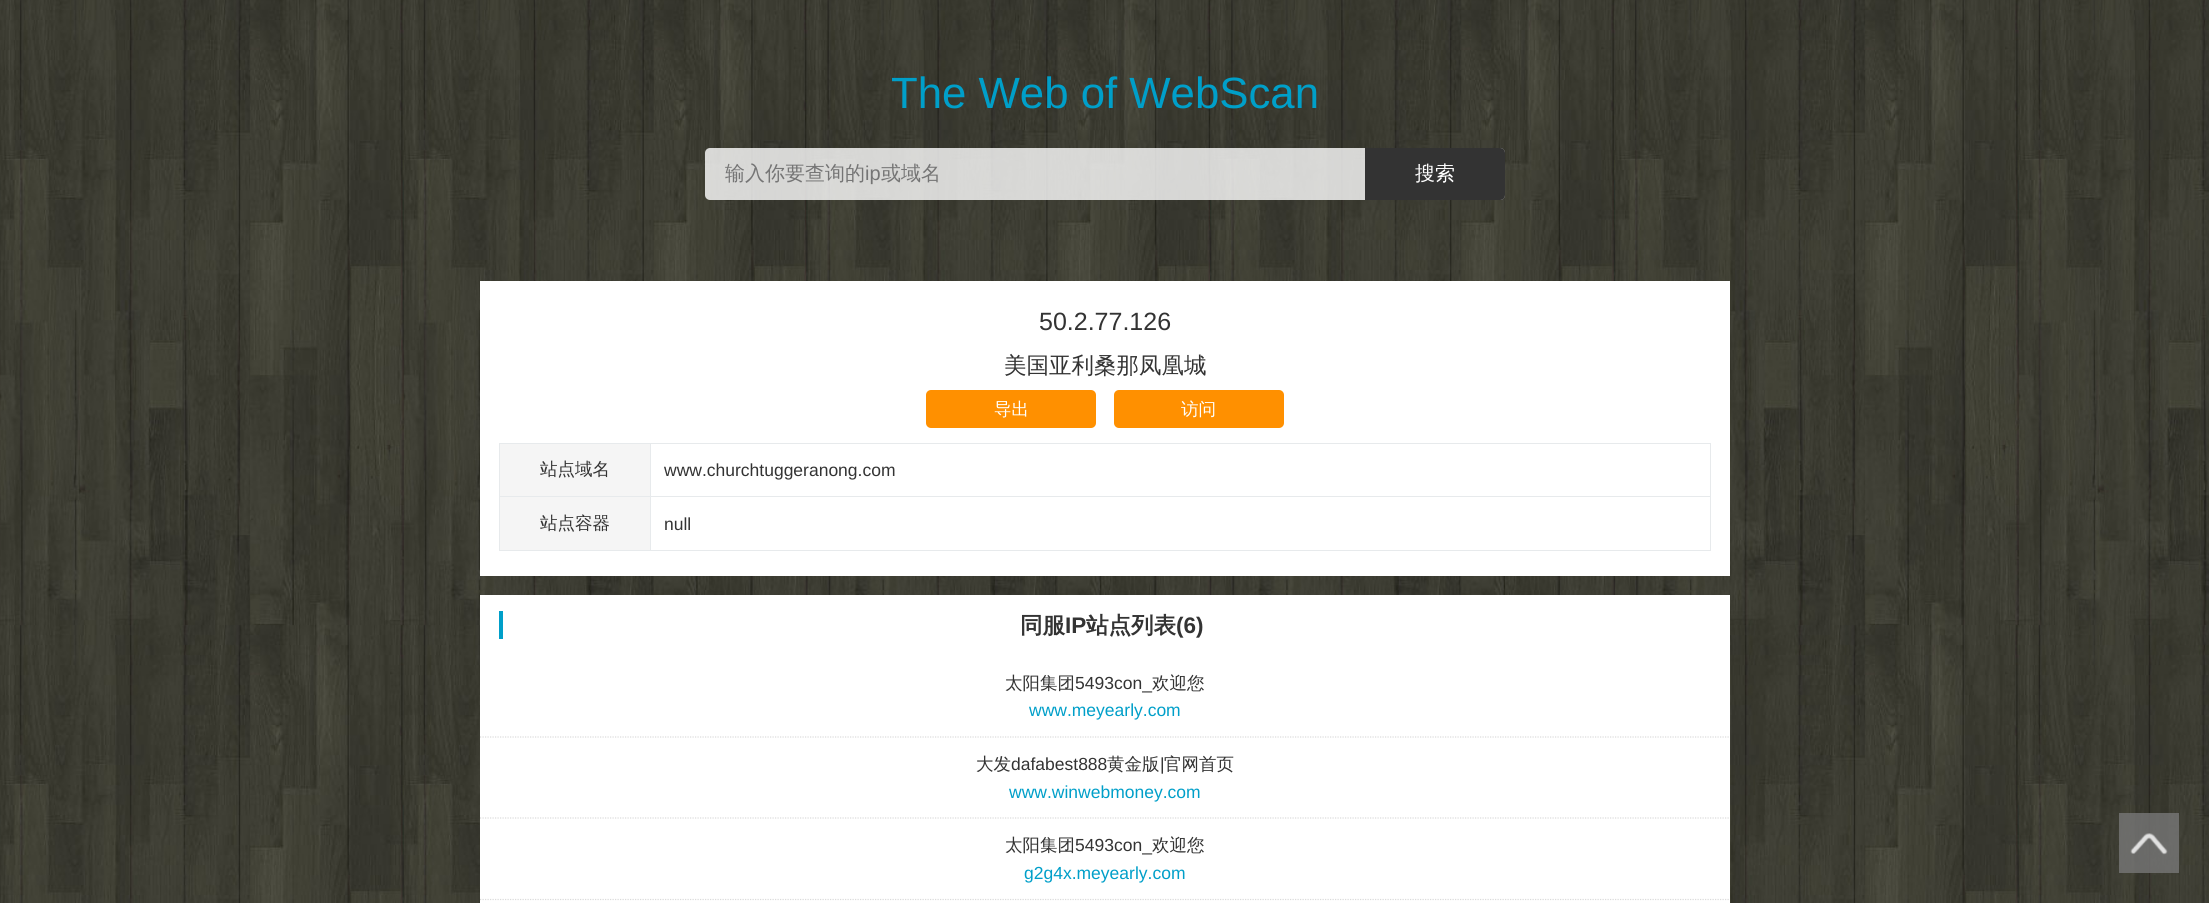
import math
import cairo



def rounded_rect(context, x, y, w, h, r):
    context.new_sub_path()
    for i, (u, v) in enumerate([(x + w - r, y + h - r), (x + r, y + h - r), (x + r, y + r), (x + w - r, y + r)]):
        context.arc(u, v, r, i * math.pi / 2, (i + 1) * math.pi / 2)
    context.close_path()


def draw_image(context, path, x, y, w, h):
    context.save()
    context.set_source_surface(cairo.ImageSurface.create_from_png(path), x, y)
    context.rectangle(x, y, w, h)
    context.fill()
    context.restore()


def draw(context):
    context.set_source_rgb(1, 1, 1)
    context.paint()
    draw_image(context, "images/1.png", 0, 0, 2209, 903)
    context.set_source_rgba(1, 1, 1, 0.8)
    rounded_rect(context, 705, 148, 800, 52, 5)
    context.fill()
    context.set_source_rgb(51 / 255, 51 / 255, 51 / 255)
    context.new_path()
    context.move_to(1365, 148)
    context.line_to(1500, 148)
    context.curve_to(1503, 148, 1505, 150, 1505, 153)
    context.line_to(1505, 195)
    context.curve_to(1505, 198, 1503, 200, 1500, 200)
    context.line_to(1365, 200)
    context.close_path()
    context.fill()
    context.set_source_rgb(1, 1, 1)
    context.rectangle(480, 281, 1250, 295)
    context.fill()
    context.set_source_rgb(1, 144 / 255, 0)
    rounded_rect(context, 926, 390, 170, 38, 5)
    context.fill()
    rounded_rect(context, 1114, 390, 170, 38, 5)
    context.fill()
    context.set_source_rgb(231 / 255, 234 / 255, 236 / 255)
    context.rectangle(499, 443, 1212, 1)
    context.fill()
    context.rectangle(1710, 443, 1, 108)
    context.fill()
    context.rectangle(499, 550, 1212, 1)
    context.fill()
    context.set_source_rgb(245 / 255, 245 / 255, 245 / 255)
    context.rectangle(500, 444, 150, 106)
    context.fill()
    context.set_source_rgb(231 / 255, 234 / 255, 236 / 255)
    context.rectangle(499, 496, 1212, 1)
    context.fill()
    context.rectangle(499, 443, 1, 108)
    context.fill()
    context.rectangle(650, 443, 1, 108)
    context.fill()
    context.set_source_rgb(1, 1, 1)
    context.rectangle(480, 595, 1250, 308)
    context.fill()
    context.set_source_rgb(0, 159 / 255, 201 / 255)
    context.rectangle(499, 611, 4, 28)
    context.fill()
    context.new_path()
    context.move_to(480, 737)
    context.line_to(1730, 737)
    context.set_source_rgb(219 / 255, 219 / 255, 219 / 255)
    context.set_line_width(1.2)
    context.set_dash([1.25, 1.25])
    context.stroke()
    context.new_path()
    context.move_to(480, 818)
    context.line_to(1730, 818)
    context.stroke()
    context.new_path()
    context.move_to(480, 899.5)
    context.line_to(1730, 899.5)
    context.stroke()
    context.set_source_rgba(119 / 255, 119 / 255, 119 / 255, 0.8)
    context.rectangle(2119, 813, 60, 60)
    context.fill()
    draw_image(context, "images/2.png", 2130, 833, 38, 22)
    context.select_font_face("Liberation Sans")
    context.set_font_size(43.75)
    context.set_source_rgb(0, 159 / 255, 201 / 255)
    context.move_to(891, 108)
    context.show_text("The Web of WebScan")
    context.select_font_face("WenQuanYi Zen Hei Medium")
    context.set_font_size(20)
    context.set_source_rgb(117 / 255, 117 / 255, 117 / 255)
    context.move_to(725, 180)
    context.show_text("输入你要查询的")
    context.select_font_face("Liberation Sans")
    context.move_to(865, 180)
    context.show_text("ip")
    context.select_font_face("WenQuanYi Zen Hei Medium")
    context.move_to(881, 180)
    context.show_text("或域名")
    context.set_source_rgb(1, 1, 1)
    context.move_to(1415, 180)
    context.show_text("搜索")
    context.select_font_face("Liberation Sans")
    context.set_font_size(25)
    context.set_source_rgb(51 / 255, 51 / 255, 51 / 255)
    context.move_to(1039, 330)
    context.show_text("50.2.77.126")
    context.select_font_face("WenQuanYi Zen Hei Medium")
    context.set_font_size(22.5)
    context.move_to(1004, 373)
    context.show_text("美国亚利桑那凤凰城")
    context.set_font_size(17.5)
    context.set_source_rgb(1, 1, 1)
    context.move_to(994, 415)
    context.show_text("导出")
    context.move_to(1181, 415)
    context.show_text("访问")
    context.set_source_rgb(51 / 255, 51 / 255, 51 / 255)
    context.move_to(540, 475)
    context.show_text("站点域名")
    context.select_font_face("Liberation Sans")
    context.move_to(664, 476)
    context.show_text("www.churchtuggeranong.com")
    context.select_font_face("WenQuanYi Zen Hei Medium")
    context.move_to(540, 529)
    context.show_text("站点容器")
    context.select_font_face("Liberation Sans")
    context.move_to(664, 530)
    context.show_text("null")
    context.select_font_face("WenQuanYi Zen Hei", cairo.FontSlant.NORMAL, cairo.FontWeight.BOLD)
    context.set_font_size(22.5)
    context.move_to(1020, 633)
    context.show_text("同服")
    context.select_font_face("Liberation Sans", cairo.FontSlant.NORMAL, cairo.FontWeight.BOLD)
    context.move_to(1065, 633)
    context.show_text("IP")
    context.select_font_face("WenQuanYi Zen Hei", cairo.FontSlant.NORMAL, cairo.FontWeight.BOLD)
    context.move_to(1086, 633)
    context.show_text("站点列表")
    context.select_font_face("Liberation Sans", cairo.FontSlant.NORMAL, cairo.FontWeight.BOLD)
    context.move_to(1176, 633)
    context.show_text("(6)")
    context.select_font_face("WenQuanYi Zen Hei Medium")
    context.set_font_size(17.5)
    context.move_to(1005, 689)
    context.show_text("太阳集团")
    context.select_font_face("Liberation Sans")
    context.move_to(1075, 689)
    context.show_text("5493con_")
    context.select_font_face("WenQuanYi Zen Hei Medium")
    context.move_to(1152, 689)
    context.show_text("欢迎您")
    context.select_font_face("Liberation Sans")
    context.set_source_rgb(0, 159 / 255, 201 / 255)
    context.move_to(1029, 716)
    context.show_text("www.meyearly.com")
    context.select_font_face("WenQuanYi Zen Hei Medium")
    context.set_source_rgb(51 / 255, 51 / 255, 51 / 255)
    context.move_to(976, 770)
    context.show_text("大发")
    context.select_font_face("Liberation Sans")
    context.move_to(1011, 770)
    context.show_text("dafabest888")
    context.select_font_face("WenQuanYi Zen Hei Medium")
    context.move_to(1107, 770)
    context.show_text("黄金版")
    context.select_font_face("Liberation Sans")
    context.move_to(1160, 770)
    context.show_text("|")
    context.select_font_face("WenQuanYi Zen Hei Medium")
    context.move_to(1164, 770)
    context.show_text("官网首页")
    context.select_font_face("Liberation Sans")
    context.set_source_rgb(0, 159 / 255, 201 / 255)
    context.move_to(1009, 798)
    context.show_text("www.winwebmoney.com")
    context.select_font_face("WenQuanYi Zen Hei Medium")
    context.set_source_rgb(51 / 255, 51 / 255, 51 / 255)
    context.move_to(1005, 851)
    context.show_text("太阳集团")
    context.select_font_face("Liberation Sans")
    context.move_to(1075, 851)
    context.show_text("5493con_")
    context.select_font_face("WenQuanYi Zen Hei Medium")
    context.move_to(1152, 851)
    context.show_text("欢迎您")
    context.select_font_face("Liberation Sans")
    context.set_source_rgb(0, 159 / 255, 201 / 255)
    context.move_to(1024, 879)
    context.show_text("g2g4x.meyearly.com")


surface = cairo.ImageSurface(cairo.Format.RGB24, 2209, 903)
context = cairo.Context(surface)
options = cairo.FontOptions()
options.set_hint_metrics(cairo.HintMetrics.OFF)
options.set_hint_style(cairo.HintStyle.NONE)
context.set_font_options(options)
context.set_miter_limit(4)
draw(context)
surface.write_to_png("out.png")
